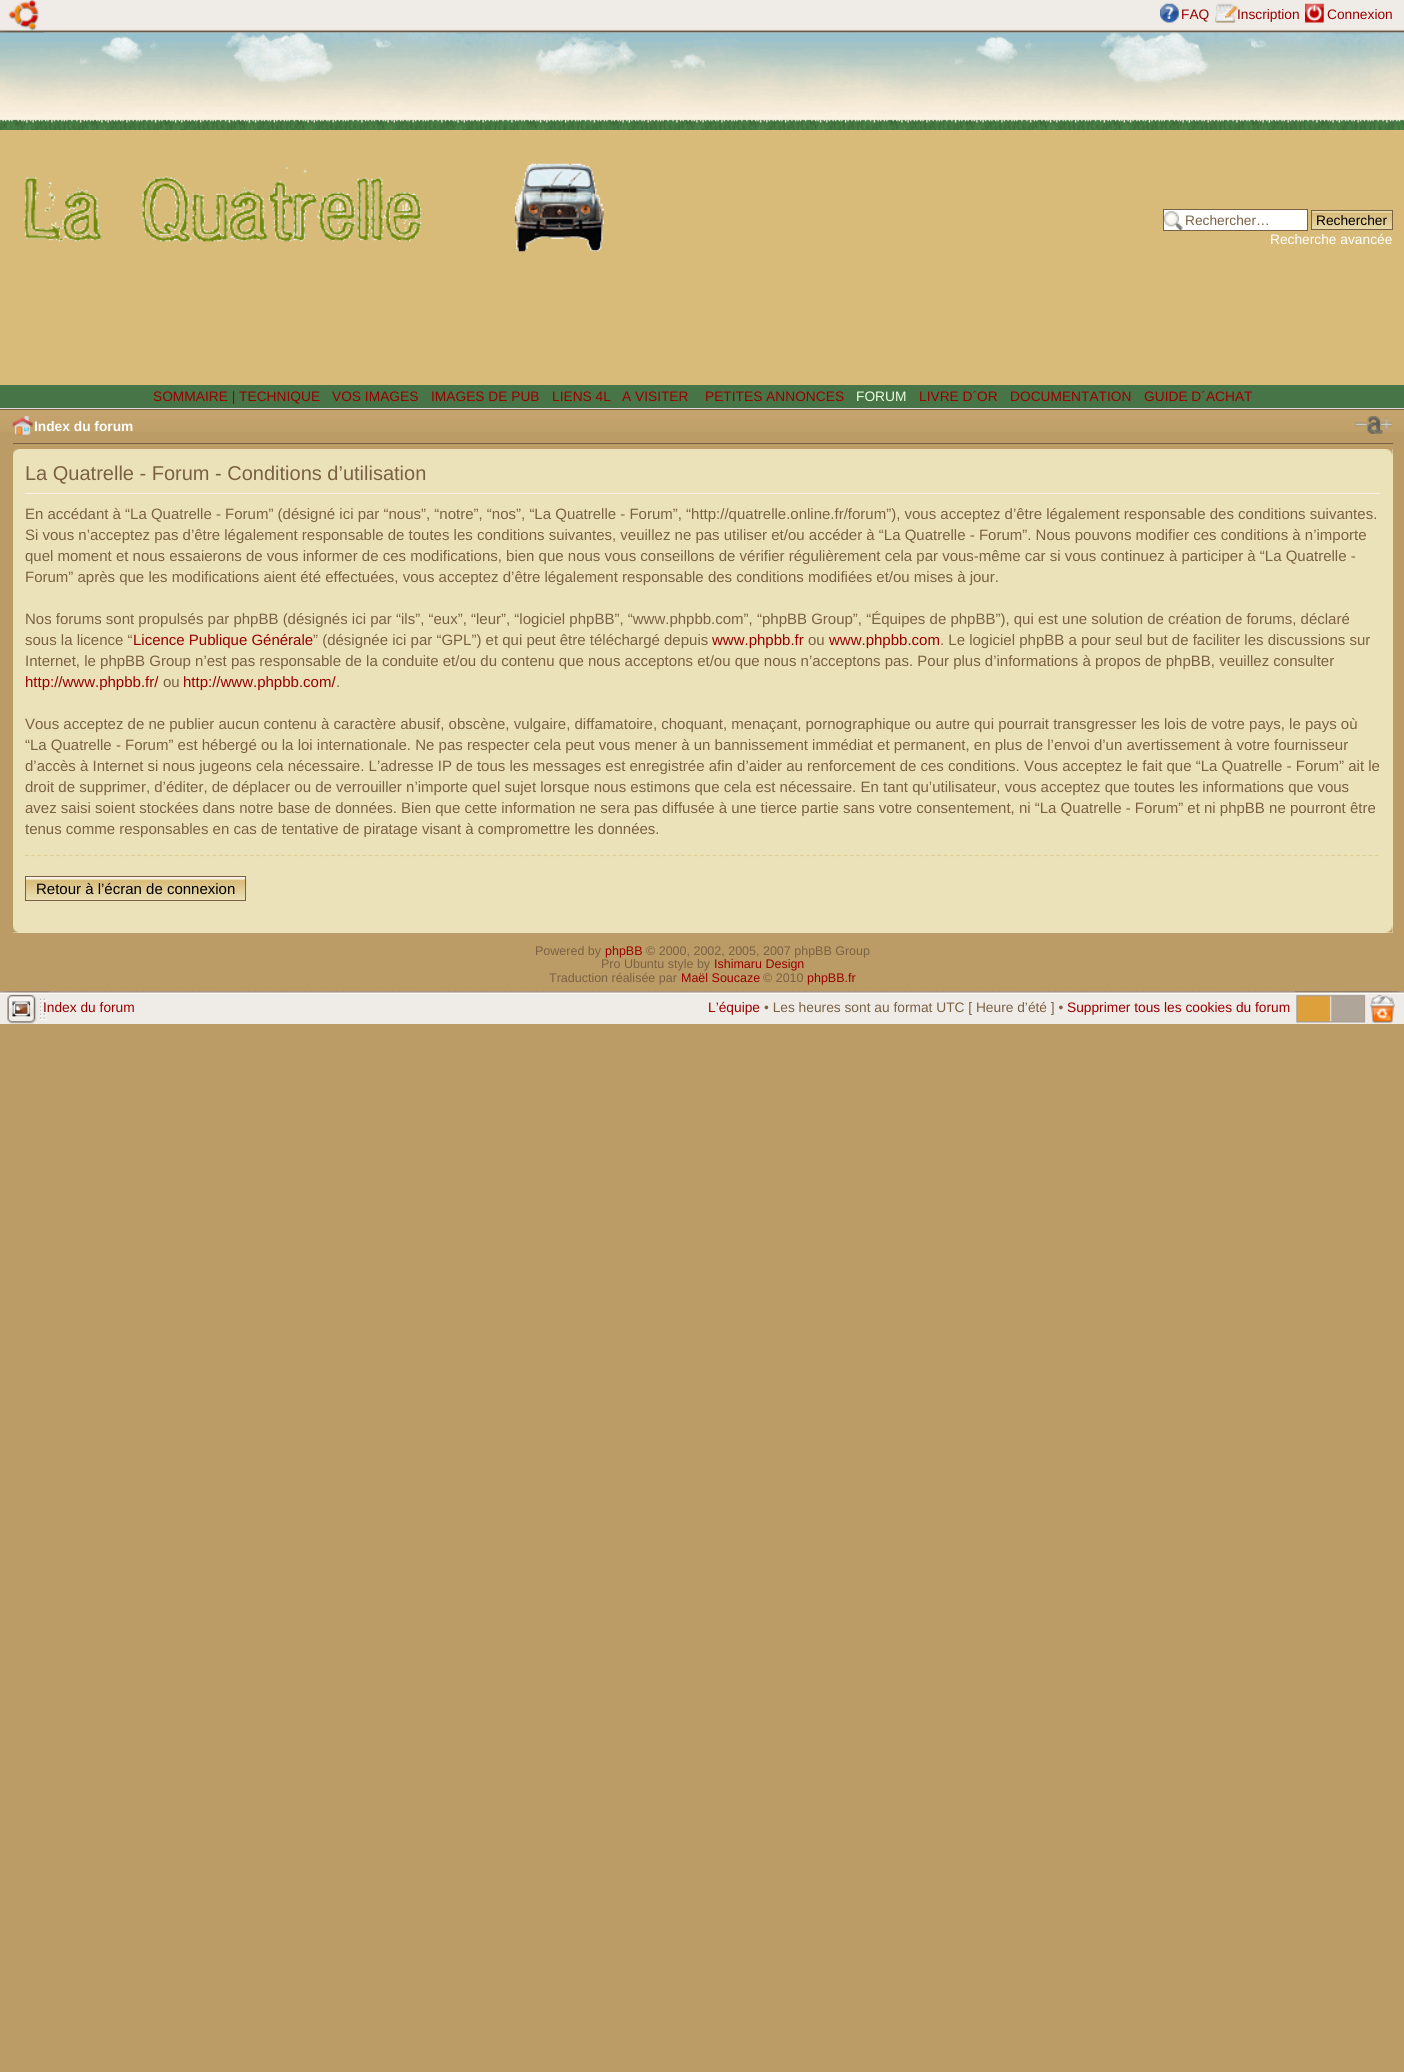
import math
import cairo



def draw_image(context, path, x, y, w, h):
    context.save()
    context.set_source_surface(cairo.ImageSurface.create_from_png(path), x, y)
    context.rectangle(x, y, w, h)
    context.fill()
    context.restore()


def draw(context):
    context.set_source_rgb(187 / 255, 156 / 255, 102 / 255)
    context.paint()
    context.set_source_rgb(239 / 255, 235 / 255, 231 / 255)
    context.rectangle(0, 0, 1404, 33)
    context.fill()
    draw_image(context, "images/1.png", 0, 29, 1404, 4)
    draw_image(context, "images/2.png", 0, 0, 44, 33)
    draw_image(context, "images/3.png", 1160, 3, 19, 20)
    draw_image(context, "images/4.png", 1215, 3, 23, 20)
    draw_image(context, "images/5.png", 1305, 3, 19, 20)
    context.set_source_rgb(217 / 255, 187 / 255, 121 / 255)
    context.rectangle(0, 130, 1404, 255)
    context.fill()
    draw_image(context, "images/6.png", 0, 32, 1404, 98)
    draw_image(context, "images/7.png", 23, 166, 399, 77)
    draw_image(context, "images/8.png", 514, 163, 90, 89)
    context.set_source_rgb(1, 1, 1)
    context.rectangle(1164, 210, 143, 20)
    context.fill()
    draw_image(context, "images/9.png", 1164, 211, 19, 19)
    context.rectangle(1163.5, 209.5, 144, 21)
    context.set_source_rgb(122 / 255, 97 / 255, 67 / 255)
    context.set_line_width(1)
    context.stroke()
    draw_image(context, "images/10.png", 1312, 211, 80, 18)
    context.rectangle(1311.5, 210.5, 81, 19)
    context.stroke()
    context.set_source_rgb(72 / 255, 117 / 255, 72 / 255)
    context.rectangle(0, 385, 1404, 23)
    context.fill()
    context.set_source_rgb(221 / 255, 221 / 255, 221 / 255)
    context.rectangle(0, 408, 1404, 1)
    context.fill()
    draw_image(context, "images/11.png", 0, 410, 1404, 22)
    context.set_source_rgb(122 / 255, 97 / 255, 67 / 255)
    context.rectangle(0, 409, 1404, 1)
    context.fill()
    context.rectangle(13, 443, 1380, 1)
    context.fill()
    draw_image(context, "images/12.png", 12, 416, 21, 19)
    draw_image(context, "images/13.png", 1355, 416, 38, 18)
    context.set_source_rgb(235 / 255, 226 / 255, 185 / 255)
    context.rectangle(13, 449, 1380, 484)
    context.fill()
    draw_image(context, "images/14.png", 13, 449, 6, 6)
    draw_image(context, "images/15.png", 1386, 449, 7, 6)
    context.set_source_rgb(250 / 255, 242 / 255, 234 / 255)
    context.rectangle(25, 493, 1355, 1)
    context.fill()
    context.new_path()
    context.move_to(25, 855.5)
    context.line_to(1380, 855.5)
    context.set_source_rgb(224 / 255, 206 / 255, 150 / 255)
    context.set_line_width(1.2)
    context.set_dash([3.75, 2.5])
    context.stroke()
    context.set_source_rgb(250 / 255, 242 / 255, 234 / 255)
    context.rectangle(26, 877, 219, 2)
    context.fill()
    draw_image(context, "images/16.png", 26, 878, 221, 23)
    context.rectangle(25.5, 876.5, 220, 24)
    context.set_source_rgb(122 / 255, 97 / 255, 67 / 255)
    context.set_line_width(1)
    context.set_dash([])
    context.stroke()
    draw_image(context, "images/17.png", 13, 926, 6, 7)
    draw_image(context, "images/18.png", 1386, 926, 7, 7)
    context.set_source_rgb(239 / 255, 235 / 255, 231 / 255)
    context.rectangle(0, 991, 1404, 33)
    context.fill()
    draw_image(context, "images/19.png", 0, 991, 1404, 3)
    draw_image(context, "images/20.png", 1295, 991, 104, 32)
    draw_image(context, "images/21.png", 6, 991, 43, 33)
    context.select_font_face("Liberation Sans")
    context.set_font_size(13.75)
    context.set_source_rgb(152 / 255, 0, 0)
    context.move_to(1181, 19)
    context.show_text("FAQ")
    context.move_to(1237, 19)
    context.show_text("Inscription")
    context.move_to(1327, 19)
    context.show_text("Connexion")
    context.set_source_rgb(122 / 255, 97 / 255, 67 / 255)
    context.move_to(1185, 225)
    context.show_text("Rechercher…")
    context.set_source_rgb(0, 0, 0)
    context.move_to(1316, 225)
    context.show_text("Rechercher")
    context.set_source_rgb(1, 1, 1)
    context.move_to(1270, 244)
    context.show_text("Recherche avancée")
    context.set_source_rgb(152 / 255, 0, 0)
    context.move_to(153, 401)
    context.show_text("SOMMAIRE | TECHNIQUE")
    context.move_to(332, 401)
    context.show_text("VOS IMAGES")
    context.move_to(431, 401)
    context.show_text("IMAGES DE PUB")
    context.move_to(552, 401)
    context.show_text("LIENS 4L")
    context.move_to(622, 401)
    context.show_text("A VISITER")
    context.move_to(705, 401)
    context.show_text("PETITES ANNONCES")
    context.set_source_rgb(237 / 255, 1, 223 / 255)
    context.move_to(856, 401)
    context.show_text("FORUM")
    context.set_source_rgb(152 / 255, 0, 0)
    context.move_to(919, 401)
    context.show_text("LIVRE D´OR")
    context.move_to(1010, 401)
    context.show_text("DOCUMENTATION")
    context.move_to(1144, 401)
    context.show_text("GUIDE D´ACHAT")
    context.select_font_face("Liberation Sans", cairo.FontSlant.NORMAL, cairo.FontWeight.BOLD)
    context.set_source_rgb(1, 1, 1)
    context.move_to(34, 431)
    context.show_text("Index du forum")
    context.select_font_face("Liberation Sans")
    context.set_font_size(20)
    context.set_source_rgb(122 / 255, 97 / 255, 67 / 255)
    context.move_to(25, 480)
    context.show_text("La Quatrelle - Forum - Conditions d’utilisation")
    context.set_font_size(15)
    context.move_to(25, 519)
    context.show_text("En accédant à “La Quatrelle - Forum” (désigné ici par “nous”, “notre”, “nos”, “La Quatrelle - Forum”, “http://quatrelle.online.fr/forum”), vous acceptez d’être légalement responsable des conditions suivantes.")
    context.move_to(25, 540)
    context.show_text("Si vous n’acceptez pas d’être légalement responsable de toutes les conditions suivantes, veuillez ne pas utiliser et/ou accéder à “La Quatrelle - Forum”. Nous pouvons modifier ces conditions à n’importe")
    context.move_to(25, 561)
    context.show_text("quel moment et nous essaierons de vous informer de ces modifications, bien que nous vous conseillons de vérifier régulièrement cela par vous-même car si vous continuez à participer à “La Quatrelle -")
    context.move_to(25, 582)
    context.show_text("Forum” après que les modifications aient été effectuées, vous acceptez d’être légalement responsable des conditions modifiées et/ou mises à jour.")
    context.move_to(25, 624)
    context.show_text("Nos forums sont propulsés par phpBB (désignés ici par “ils”, “eux”, “leur”, “logiciel phpBB”, “www.phpbb.com”, “phpBB Group”, “Équipes de phpBB”), qui est une solution de création de forums, déclaré")
    context.move_to(25, 645)
    context.show_text("sous la licence “")
    context.set_source_rgb(152 / 255, 0, 0)
    context.move_to(133, 645)
    context.show_text("Licence Publique Générale")
    context.set_source_rgb(122 / 255, 97 / 255, 67 / 255)
    context.move_to(313, 645)
    context.show_text("” (désignée ici par “GPL”) et qui peut être téléchargé depuis")
    context.set_source_rgb(152 / 255, 0, 0)
    context.move_to(712, 645)
    context.show_text("www.phpbb.fr")
    context.set_source_rgb(122 / 255, 97 / 255, 67 / 255)
    context.move_to(808, 645)
    context.show_text("ou")
    context.set_source_rgb(152 / 255, 0, 0)
    context.move_to(829, 645)
    context.show_text("www.phpbb.com")
    context.set_source_rgb(122 / 255, 97 / 255, 67 / 255)
    context.move_to(940, 645)
    context.show_text(". Le logiciel phpBB a pour seul but de faciliter les discussions sur")
    context.move_to(25, 666)
    context.show_text("Internet, le phpBB Group n’est pas responsable de la conduite et/ou du contenu que nous acceptons et/ou que nous n’acceptons pas. Pour plus d’informations à propos de phpBB, veuillez consulter")
    context.set_source_rgb(152 / 255, 0, 0)
    context.move_to(25, 687)
    context.show_text("http://www.phpbb.fr/")
    context.set_source_rgb(122 / 255, 97 / 255, 67 / 255)
    context.move_to(163, 687)
    context.show_text("ou")
    context.set_source_rgb(152 / 255, 0, 0)
    context.move_to(183, 687)
    context.show_text("http://www.phpbb.com/")
    context.set_source_rgb(122 / 255, 97 / 255, 67 / 255)
    context.move_to(336, 687)
    context.show_text(".")
    context.move_to(25, 729)
    context.show_text("Vous acceptez de ne publier aucun contenu à caractère abusif, obscène, vulgaire, diffamatoire, choquant, menaçant, pornographique ou autre qui pourrait transgresser les lois de votre pays, le pays où")
    context.move_to(25, 750)
    context.show_text("“La Quatrelle - Forum” est hébergé ou la loi internationale. Ne pas respecter cela peut vous mener à un bannissement immédiat et permanent, en plus de l’envoi d’un avertissement à votre fournisseur")
    context.move_to(25, 771)
    context.show_text("d’accès à Internet si nous jugeons cela nécessaire. L’adresse IP de tous les messages est enregistrée afin d’aider au renforcement de ces conditions. Vous acceptez le fait que “La Quatrelle - Forum” ait le")
    context.move_to(25, 792)
    context.show_text("droit de supprimer, d’éditer, de déplacer ou de verrouiller n’importe quel sujet lorsque nous estimons que cela est nécessaire. En tant qu’utilisateur, vous acceptez que toutes les informations que vous")
    context.move_to(25, 813)
    context.show_text("avez saisi soient stockées dans notre base de données. Bien que cette information ne sera pas diffusée à une tierce partie sans votre consentement, ni “La Quatrelle - Forum” et ni phpBB ne pourront être")
    context.move_to(25, 834)
    context.show_text("tenus comme responsables en cas de tentative de piratage visant à compromettre les données.")
    context.set_source_rgb(0, 0, 0)
    context.move_to(36, 894)
    context.show_text("Retour à l’écran de connexion")
    context.set_font_size(12.5)
    context.set_source_rgb(122 / 255, 97 / 255, 67 / 255)
    context.move_to(535, 955)
    context.show_text("Powered by")
    context.set_source_rgb(152 / 255, 0, 0)
    context.move_to(605, 955)
    context.show_text("phpBB")
    context.set_source_rgb(122 / 255, 97 / 255, 67 / 255)
    context.move_to(646, 955)
    context.show_text("© 2000, 2002, 2005, 2007 phpBB Group")
    context.move_to(601, 968)
    context.show_text("Pro Ubuntu style by")
    context.set_source_rgb(152 / 255, 0, 0)
    context.move_to(714, 968)
    context.show_text("Ishimaru Design")
    context.set_source_rgb(122 / 255, 97 / 255, 67 / 255)
    context.move_to(549, 982)
    context.show_text("Traduction réalisée par")
    context.set_source_rgb(152 / 255, 0, 0)
    context.move_to(681, 982)
    context.show_text("Maël Soucaze")
    context.set_source_rgb(122 / 255, 97 / 255, 67 / 255)
    context.move_to(763, 982)
    context.show_text("© 2010")
    context.set_source_rgb(152 / 255, 0, 0)
    context.move_to(807, 982)
    context.show_text("phpBB.fr")
    context.set_font_size(13.75)
    context.move_to(43, 1012)
    context.show_text("Index du forum")
    context.move_to(708, 1012)
    context.show_text("L’équipe")
    context.set_source_rgb(122 / 255, 97 / 255, 67 / 255)
    context.move_to(764, 1012)
    context.show_text("• Les heures sont au format UTC [ Heure d’été ] •")
    context.set_source_rgb(152 / 255, 0, 0)
    context.move_to(1067, 1012)
    context.show_text("Supprimer tous les cookies du forum")


surface = cairo.ImageSurface(cairo.Format.RGB24, 1404, 2072)
context = cairo.Context(surface)
options = cairo.FontOptions()
options.set_hint_metrics(cairo.HintMetrics.OFF)
options.set_hint_style(cairo.HintStyle.NONE)
context.set_font_options(options)
context.set_miter_limit(4)
draw(context)
surface.write_to_png("out.png")
